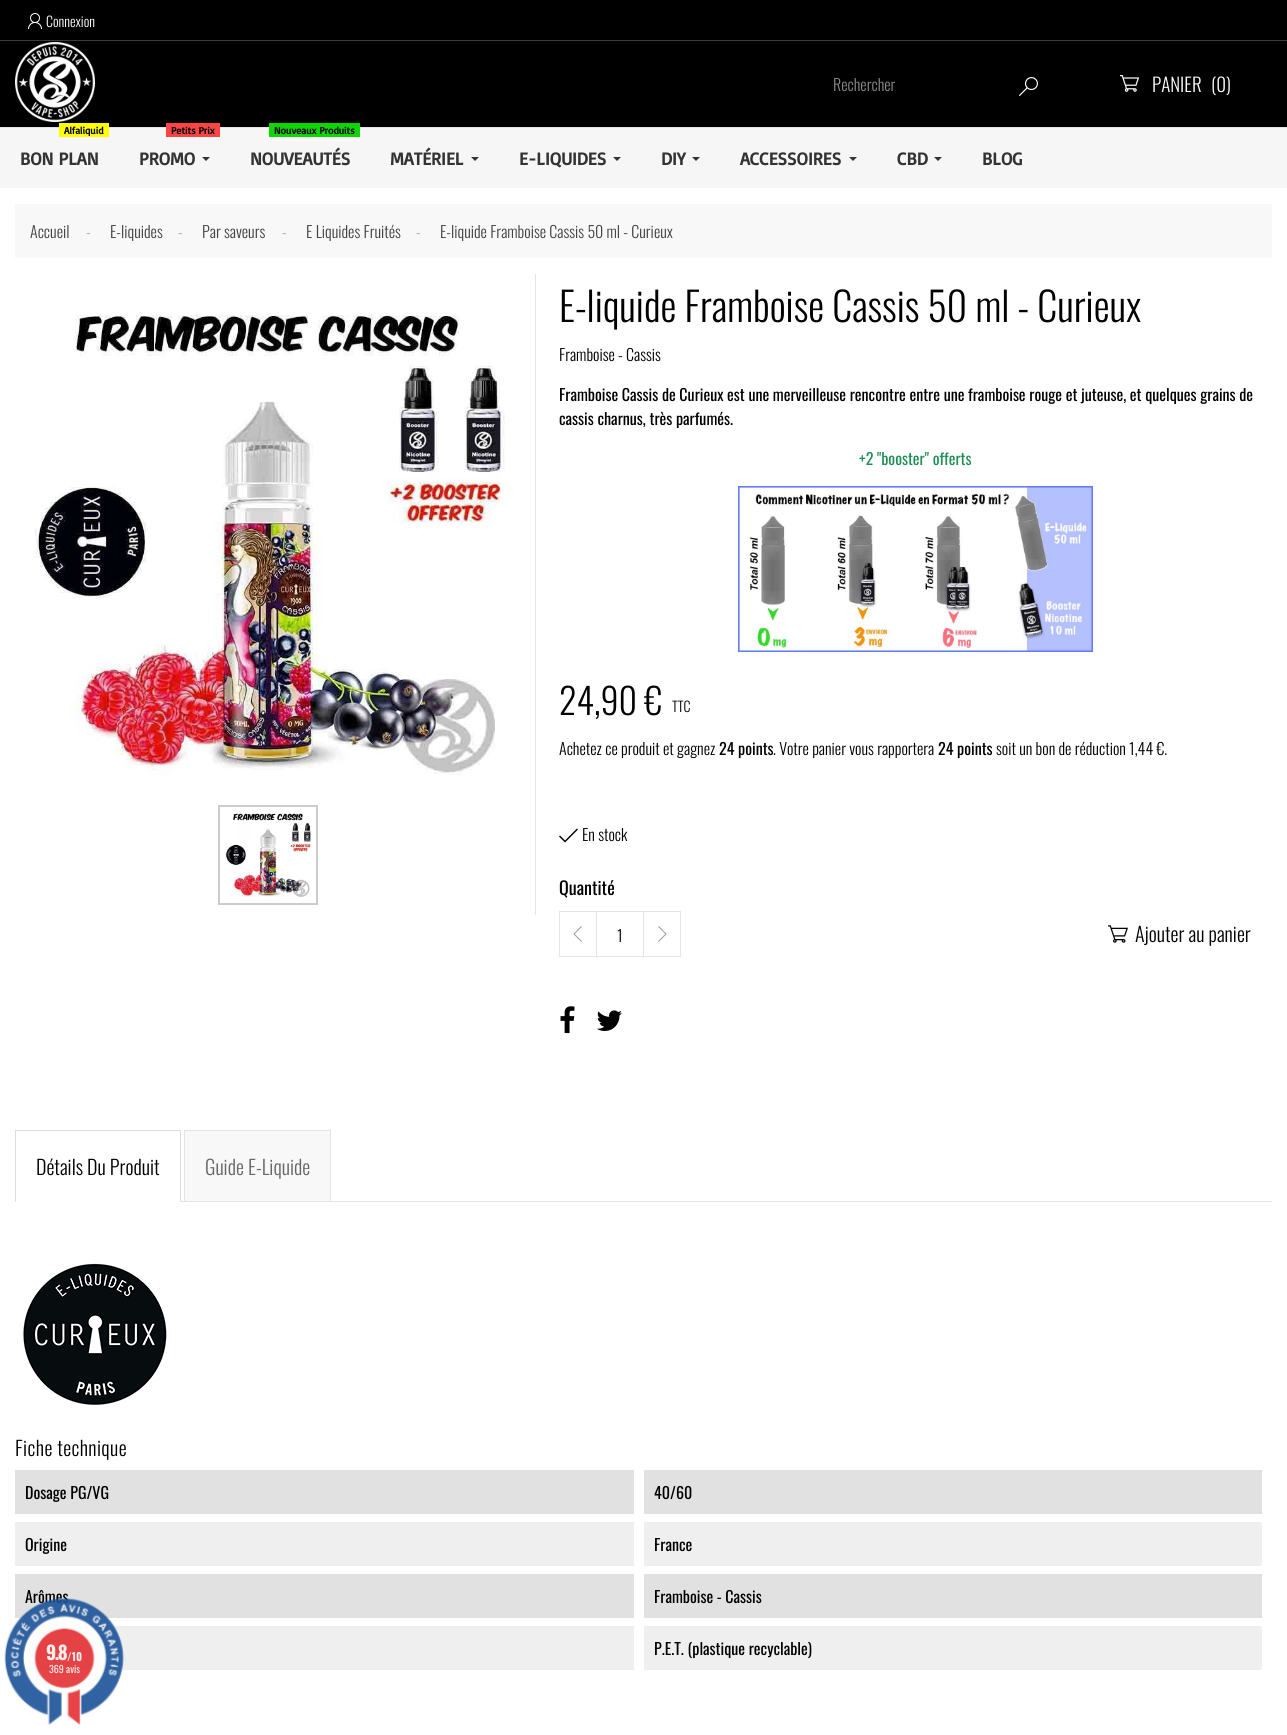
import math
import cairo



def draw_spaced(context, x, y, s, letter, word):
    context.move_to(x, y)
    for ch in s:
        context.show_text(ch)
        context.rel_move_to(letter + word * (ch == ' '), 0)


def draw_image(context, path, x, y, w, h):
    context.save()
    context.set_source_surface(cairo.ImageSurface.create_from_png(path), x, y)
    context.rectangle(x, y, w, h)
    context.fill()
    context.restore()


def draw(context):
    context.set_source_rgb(1, 1, 1)
    context.paint()
    context.set_source_rgb(0, 0, 0)
    context.rectangle(0, 0, 1287, 40)
    context.fill()
    draw_image(context, "images/1.png", 28, 13, 14, 16)
    context.rectangle(0, 41, 1287, 86)
    context.fill()
    context.set_source_rgb(59 / 255, 59 / 255, 59 / 255)
    context.rectangle(0, 40, 1287, 1)
    context.fill()
    draw_image(context, "images/2.png", 15, 42, 80, 80)
    draw_image(context, "images/3.png", 1019, 77, 19, 19)
    draw_image(context, "images/4.png", 1120, 75, 20, 17)
    context.set_source_rgb(228 / 255, 228 / 255, 228 / 255)
    context.rectangle(0, 127, 1287, 1)
    context.fill()
    context.set_source_rgb(246 / 255, 246 / 255, 246 / 255)
    context.rectangle(0, 128, 1287, 60)
    context.fill()
    context.set_source_rgb(1, 1, 0)
    context.rectangle(59, 123, 50, 14)
    context.fill()
    context.set_source_rgb(252 / 255, 68 / 255, 68 / 255)
    context.rectangle(166, 123, 54, 14)
    context.fill()
    context.set_source_rgb(51 / 255, 51 / 255, 51 / 255)
    context.new_path()
    context.move_to(202, 157)
    context.line_to(210, 157)
    context.line_to(206, 161)
    context.close_path()
    context.fill()
    context.set_source_rgb(13 / 255, 214 / 255, 0)
    context.rectangle(269, 123, 91, 14)
    context.fill()
    context.set_source_rgb(51 / 255, 51 / 255, 51 / 255)
    context.new_path()
    context.move_to(471, 157)
    context.line_to(479, 157)
    context.line_to(475, 161)
    context.close_path()
    context.fill()
    context.new_path()
    context.move_to(613, 157)
    context.line_to(621, 157)
    context.line_to(617, 161)
    context.close_path()
    context.fill()
    context.new_path()
    context.move_to(692, 157)
    context.line_to(700, 157)
    context.line_to(696, 161)
    context.close_path()
    context.fill()
    context.new_path()
    context.move_to(849, 157)
    context.line_to(857, 157)
    context.line_to(853, 161)
    context.close_path()
    context.fill()
    context.new_path()
    context.move_to(934, 157)
    context.line_to(942, 157)
    context.line_to(938, 161)
    context.close_path()
    context.fill()
    context.set_source_rgb(248 / 255, 248 / 255, 248 / 255)
    context.rectangle(15, 204, 1257, 54)
    context.fill()
    context.set_source_rgb(228 / 255, 228 / 255, 228 / 255)
    context.rectangle(535, 274, 1, 641)
    context.fill()
    draw_image(context, "images/5.png", 35, 315, 475, 460)
    context.rectangle(219, 806, 98, 98)
    context.set_source_rgb(204 / 255, 204 / 255, 204 / 255)
    context.stroke()
    draw_image(context, "images/6.png", 225, 813, 88, 84)
    draw_image(context, "images/7.png", 738, 486, 355, 166)
    context.set_source_rgb(0, 0, 0)
    context.new_path()
    context.move_to(565, 842.5)
    context.line_to(559, 836.5)
    context.line_to(560, 835.5)
    context.line_to(565, 840.5)
    context.line_to(577, 828.5)
    context.line_to(578, 829.5)
    context.close_path()
    context.fill()
    context.rectangle(559.5, 911.5, 121, 45)
    context.set_source_rgb(228 / 255, 228 / 255, 228 / 255)
    context.set_line_width(1)
    context.stroke()
    draw_image(context, "images/8.png", 573, 926, 9, 16)
    draw_image(context, "images/9.png", 658, 926, 9, 16)
    context.rectangle(643, 912, 1, 46)
    context.fill()
    context.rectangle(596, 912, 1, 46)
    context.fill()
    draw_image(context, "images/10.png", 1108, 925, 20, 18)
    draw_image(context, "images/11.png", 560, 1006, 15, 28)
    draw_image(context, "images/12.png", 596, 1010, 26, 21)
    context.rectangle(181, 1201, 1091, 1)
    context.fill()
    context.set_source_rgb(221 / 255, 221 / 255, 221 / 255)
    context.rectangle(15, 1130, 166, 1)
    context.fill()
    context.new_path()
    context.move_to(181, 1130)
    context.line_to(181, 1202)
    context.line_to(180, 1201)
    context.line_to(180, 1131)
    context.close_path()
    context.fill()
    context.new_path()
    context.move_to(15, 1202)
    context.line_to(15, 1130)
    context.line_to(16, 1131)
    context.line_to(16, 1201)
    context.close_path()
    context.fill()
    context.set_source_rgb(248 / 255, 248 / 255, 248 / 255)
    context.rectangle(184.5, 1130.5, 146, 71)
    context.fill_preserve()
    context.set_source_rgb(228 / 255, 228 / 255, 228 / 255)
    context.stroke()
    draw_image(context, "images/13.png", 23, 1263, 144, 142)
    context.set_source_rgb(225 / 255, 225 / 255, 225 / 255)
    context.rectangle(15, 1470, 619, 44)
    context.fill()
    context.rectangle(644, 1470, 618, 44)
    context.fill()
    context.set_source_rgb(239 / 255, 239 / 255, 239 / 255)
    context.rectangle(15, 1522, 619, 44)
    context.fill()
    context.rectangle(644, 1522, 618, 44)
    context.fill()
    context.set_source_rgb(225 / 255, 225 / 255, 225 / 255)
    context.rectangle(15, 1574, 619, 44)
    context.fill()
    context.rectangle(644, 1574, 618, 44)
    context.fill()
    context.set_source_rgb(239 / 255, 239 / 255, 239 / 255)
    context.rectangle(15, 1626, 619, 44)
    context.fill()
    context.rectangle(644, 1626, 618, 44)
    context.fill()
    context.select_font_face("Oswald Light")
    context.set_font_size(14)
    context.set_source_rgb(1, 1, 1)
    context.move_to(46, 27)
    context.show_text("Connexion")
    context.set_font_size(16)
    context.set_source_rgb(138 / 255, 138 / 255, 138 / 255)
    context.move_to(833, 91)
    context.show_text("Rechercher")
    context.set_font_size(19)
    context.set_source_rgb(1, 1, 1)
    context.move_to(1152, 92)
    context.show_text("PANIER")
    context.move_to(1211, 92)
    context.show_text("(0)")
    context.select_font_face("Basic", cairo.FontSlant.NORMAL, cairo.FontWeight.BOLD)
    context.set_font_size(10)
    context.set_source_rgb(0, 0, 0)
    context.move_to(64, 134)
    context.show_text("Alfaliquid")
    context.set_font_size(18)
    context.set_source_rgb(51 / 255, 51 / 255, 51 / 255)
    context.move_to(20, 165)
    context.show_text("BON PLAN")
    context.set_font_size(10)
    context.set_source_rgb(0, 0, 0)
    context.move_to(171, 134)
    context.show_text("Petits Prix")
    context.set_font_size(18)
    context.set_source_rgb(51 / 255, 51 / 255, 51 / 255)
    context.move_to(139, 165)
    context.show_text("PROMO")
    context.set_font_size(10)
    context.set_source_rgb(0, 0, 0)
    context.move_to(274, 134)
    context.show_text("Nouveaux Produits")
    context.set_font_size(18)
    context.set_source_rgb(51 / 255, 51 / 255, 51 / 255)
    context.move_to(250, 165)
    context.show_text("NOUVEAUTÉS")
    context.move_to(390, 165)
    context.show_text("MATÉRIEL")
    context.move_to(519, 165)
    context.show_text("E-LIQUIDES")
    context.move_to(661, 165)
    context.show_text("DIY")
    context.move_to(740, 165)
    context.show_text("ACCESSOIRES")
    context.move_to(897, 165)
    context.show_text("CBD")
    context.move_to(982, 165)
    context.show_text("BLOG")
    context.select_font_face("Oswald Light")
    context.set_font_size(16)
    context.set_source_rgb(66 / 255, 66 / 255, 66 / 255)
    context.move_to(30, 238)
    context.show_text("Accueil")
    context.set_source_rgb(166 / 255, 166 / 255, 166 / 255)
    context.move_to(86, 238)
    context.show_text("-")
    context.set_source_rgb(66 / 255, 66 / 255, 66 / 255)
    context.move_to(110, 238)
    context.show_text("E-liquides")
    context.set_source_rgb(166 / 255, 166 / 255, 166 / 255)
    context.move_to(178, 238)
    context.show_text("-")
    context.set_source_rgb(66 / 255, 66 / 255, 66 / 255)
    context.move_to(202, 238)
    context.show_text("Par saveurs")
    context.set_source_rgb(166 / 255, 166 / 255, 166 / 255)
    context.move_to(282, 238)
    context.show_text("-")
    context.set_source_rgb(66 / 255, 66 / 255, 66 / 255)
    context.move_to(306, 238)
    context.show_text("E Liquides Fruités")
    context.set_source_rgb(166 / 255, 166 / 255, 166 / 255)
    context.move_to(416, 238)
    context.show_text("-")
    context.set_source_rgb(66 / 255, 66 / 255, 66 / 255)
    context.move_to(440, 238)
    context.show_text("E-liquide Framboise Cassis 50 ml - Curieux")
    context.set_font_size(40)
    context.set_source_rgb(0, 0, 0)
    context.move_to(559, 322)
    context.show_text("E-liquide Framboise Cassis 50 ml - Curieux")
    context.set_font_size(16)
    context.move_to(559, 361)
    context.show_text("Framboise - Cassis")
    context.select_font_face("Oswald")
    context.move_to(559, 401)
    context.show_text("Framboise Cassis de Curieux est une merveilleuse rencontre entre une framboise rouge et juteuse, et quelques grains de")
    context.move_to(559, 425)
    context.show_text("cassis charnus, très parfumés.")
    context.set_source_rgb(33 / 255, 142 / 255, 83 / 255)
    context.move_to(859, 465)
    context.show_text("+2 \"booster\" offerts")
    context.select_font_face("Oswald Light")
    context.set_font_size(36)
    context.set_source_rgb(0, 0, 0)
    context.move_to(559, 715)
    context.show_text("24,90 €")
    context.set_font_size(14)
    context.move_to(672, 712)
    context.show_text("TTC")
    context.set_font_size(16)
    context.move_to(559, 755)
    context.show_text("Achetez ce produit et gagnez")
    context.select_font_face("Oswald")
    context.move_to(719, 755)
    context.show_text("24 points")
    context.select_font_face("Oswald Light")
    context.move_to(773, 755)
    context.show_text(". Votre panier vous rapportera")
    context.select_font_face("Oswald")
    context.move_to(938, 755)
    context.show_text("24 points")
    context.select_font_face("Oswald Light")
    context.move_to(996, 755)
    context.show_text("soit un bon de réduction 1,44 €.")
    context.move_to(582, 841)
    context.show_text("En stock")
    context.select_font_face("Oswald")
    context.set_font_size(18)
    context.move_to(559, 895)
    context.show_text("Quantité")
    context.select_font_face("Oswald Light")
    context.set_font_size(16)
    context.move_to(617, 942)
    context.show_text("1")
    context.set_font_size(20)
    context.move_to(1135, 942)
    context.show_text("Ajouter au panier")
    context.move_to(36, 1175)
    context.show_text("Détails Du Produit")
    context.set_source_rgb(102 / 255, 102 / 255, 102 / 255)
    context.move_to(205, 1175)
    context.show_text("Guide E-Liquide")
    context.set_source_rgb(0, 0, 0)
    draw_spaced(context, 15, 1456, "Fiche technique", 0.4, 0)
    context.select_font_face("Oswald")
    context.set_font_size(16)
    context.move_to(25, 1499)
    context.show_text("Dosage PG/VG")
    context.move_to(654, 1499)
    context.show_text("40/60")
    context.move_to(25, 1551)
    context.show_text("Origine")
    context.move_to(654, 1551)
    context.show_text("France")
    context.move_to(25, 1603)
    context.show_text("Arômes")
    context.move_to(654, 1603)
    context.show_text("Framboise - Cassis")
    context.move_to(654, 1655)
    context.show_text("P.E.T. (plastique recyclable)")
    draw_image(context, "images/14.png", 4, 1598, 120, 127)
    context.select_font_face("Oswald", cairo.FontSlant.NORMAL, cairo.FontWeight.BOLD)
    context.set_font_size(19)
    context.set_source_rgb(252 / 255, 237 / 255, 237 / 255)
    draw_spaced(context, 46, 1660, "9.8", -1.5, 0)
    context.set_font_size(11)
    context.move_to(67, 1661)
    context.show_text("/10")
    context.select_font_face("Oswald")
    context.set_font_size(10)
    context.move_to(49, 1673)
    context.show_text("369 avis")


surface = cairo.ImageSurface(cairo.Format.RGB24, 1287, 1735)
context = cairo.Context(surface)
options = cairo.FontOptions()
options.set_hint_metrics(cairo.HintMetrics.OFF)
options.set_hint_style(cairo.HintStyle.NONE)
context.set_font_options(options)
context.set_miter_limit(4)
draw(context)
surface.write_to_png("out.png")
